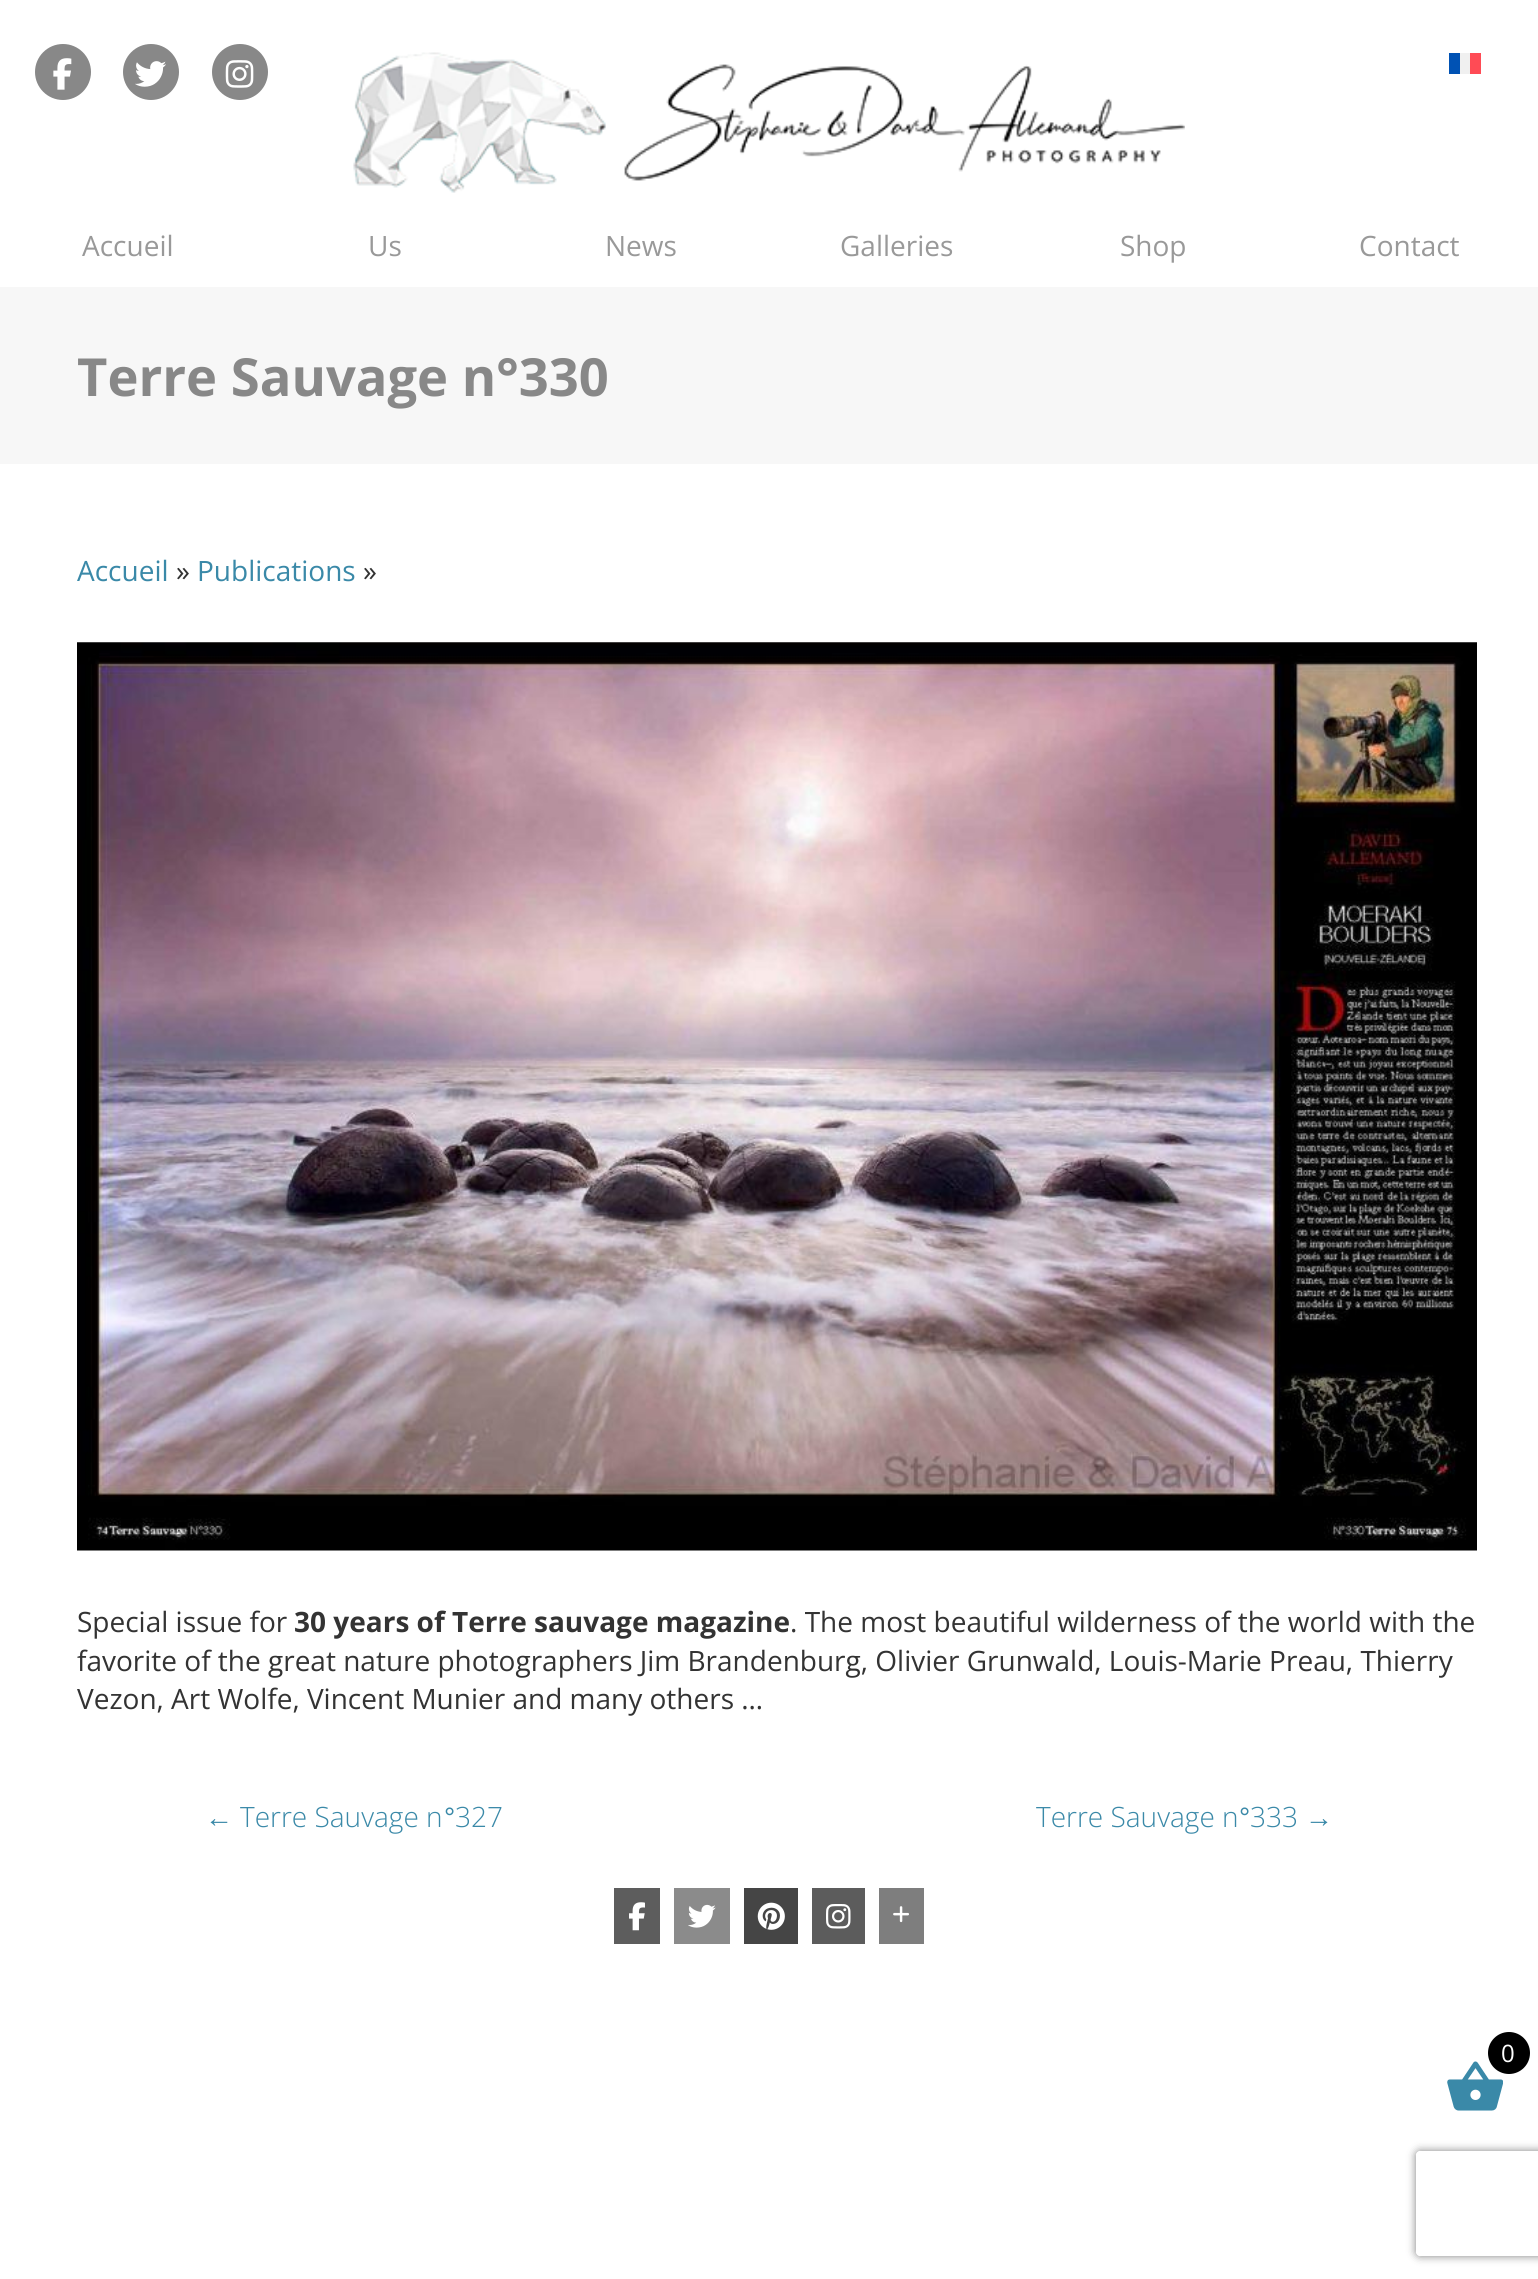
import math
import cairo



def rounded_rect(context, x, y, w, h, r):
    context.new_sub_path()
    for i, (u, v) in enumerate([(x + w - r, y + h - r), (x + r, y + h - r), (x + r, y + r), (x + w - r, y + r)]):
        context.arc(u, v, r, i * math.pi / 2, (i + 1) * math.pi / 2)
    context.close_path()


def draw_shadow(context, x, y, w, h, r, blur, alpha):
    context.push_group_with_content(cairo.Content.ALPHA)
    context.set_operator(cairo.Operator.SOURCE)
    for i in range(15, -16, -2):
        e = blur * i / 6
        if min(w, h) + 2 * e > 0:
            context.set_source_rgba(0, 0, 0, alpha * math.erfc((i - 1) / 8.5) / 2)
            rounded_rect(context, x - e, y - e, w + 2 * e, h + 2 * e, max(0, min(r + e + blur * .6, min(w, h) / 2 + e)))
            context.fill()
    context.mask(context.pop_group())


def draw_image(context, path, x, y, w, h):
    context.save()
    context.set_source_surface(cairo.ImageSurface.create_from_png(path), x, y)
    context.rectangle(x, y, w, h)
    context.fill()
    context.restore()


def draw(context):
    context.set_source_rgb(1, 1, 1)
    context.paint()
    context.set_source_rgb(136 / 255, 136 / 255, 136 / 255)
    context.arc(63, 72, 28, 0, 2 * math.pi)
    context.fill()
    draw_image(context, "images/1.png", 53, 58, 19, 32)
    context.arc(151, 72, 28, 0, 2 * math.pi)
    context.fill()
    draw_image(context, "images/2.png", 135, 61, 31, 26)
    context.arc(240, 72, 28, 0, 2 * math.pi)
    context.fill()
    draw_image(context, "images/3.png", 225, 60, 29, 28)
    draw_image(context, "images/4.png", 353, 52, 832, 141)
    context.set_source_rgb(0, 82 / 255, 180 / 255)
    context.rectangle(1449, 53, 11, 21)
    context.fill()
    context.set_source_rgb(240 / 255, 240 / 255, 240 / 255)
    context.rectangle(1460, 53, 10, 21)
    context.fill()
    context.set_source_rgb(1, 75 / 255, 85 / 255)
    context.rectangle(1470, 53, 11, 21)
    context.fill()
    context.set_source_rgb(247 / 255, 247 / 255, 247 / 255)
    context.rectangle(0, 287, 1538, 177)
    context.fill()
    draw_image(context, "images/5.png", 77, 642, 1400, 909)
    context.set_source_rgb(93 / 255, 93 / 255, 93 / 255)
    context.rectangle(614, 1888, 46, 56)
    context.fill()
    draw_image(context, "images/6.png", 629, 1902, 16, 29)
    context.set_source_rgb(139 / 255, 139 / 255, 139 / 255)
    context.rectangle(674, 1888, 56, 56)
    context.fill()
    draw_image(context, "images/7.png", 688, 1904, 28, 24)
    context.set_source_rgb(69 / 255, 69 / 255, 69 / 255)
    context.rectangle(744, 1888, 54, 56)
    context.fill()
    draw_image(context, "images/8.png", 757, 1902, 28, 28)
    context.set_source_rgb(92 / 255, 92 / 255, 92 / 255)
    context.rectangle(812, 1888, 53, 56)
    context.fill()
    draw_image(context, "images/9.png", 826, 1904, 25, 25)
    context.set_source_rgb(126 / 255, 126 / 255, 126 / 255)
    context.rectangle(879, 1888, 45, 56)
    context.fill()
    draw_image(context, "images/10.png", 893, 1906, 16, 17)
    draw_image(context, "images/11.png", 1447, 2061, 56, 50)
    context.set_source_rgb(0, 0, 0)
    context.arc(1509, 2053, 21, 0, 2 * math.pi)
    context.fill()
    context.save()
    context.set_fill_rule(cairo.FillRule.EVEN_ODD)
    context.new_path()
    context.move_to(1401, 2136)
    context.line_to(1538, 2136)
    context.line_to(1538, 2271)
    context.line_to(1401, 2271)
    context.close_path()
    context.move_to(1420, 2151)
    context.line_to(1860, 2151)
    context.curve_to(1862, 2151, 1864, 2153, 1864, 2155)
    context.line_to(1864, 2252)
    context.curve_to(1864, 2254, 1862, 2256, 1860, 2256)
    context.line_to(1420, 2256)
    context.curve_to(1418, 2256, 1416, 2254, 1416, 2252)
    context.line_to(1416, 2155)
    context.curve_to(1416, 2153, 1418, 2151, 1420, 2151)
    context.close_path()
    context.clip()
    context.set_source_rgb(128 / 255, 128 / 255, 128 / 255)
    draw_shadow(context, 1416, 2151, 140, 105, 4, 4.5, 1)
    context.restore()
    context.select_font_face("Open Sans")
    context.set_font_size(28)
    context.set_source_rgb(153 / 255, 153 / 255, 153 / 255)
    context.move_to(82, 256)
    context.show_text("Accueil")
    context.move_to(368, 256)
    context.show_text("Us")
    context.move_to(605, 256)
    context.show_text("News")
    context.move_to(840, 256)
    context.show_text("Galleries")
    context.move_to(1120, 256)
    context.show_text("Shop")
    context.move_to(1359, 256)
    context.show_text("Contact")
    context.select_font_face("Open Sans", cairo.FontSlant.NORMAL, cairo.FontWeight.BOLD)
    context.set_font_size(52.5)
    context.set_source_rgb(136 / 255, 136 / 255, 136 / 255)
    context.move_to(77, 396)
    context.show_text("Terre Sauvage n°330")
    context.select_font_face("Open Sans")
    context.set_font_size(28)
    context.set_source_rgb(58 / 255, 137 / 255, 168 / 255)
    context.move_to(77, 581)
    context.show_text("Accueil")
    context.set_source_rgb(51 / 255, 51 / 255, 51 / 255)
    context.move_to(176, 581)
    context.show_text("»")
    context.set_source_rgb(58 / 255, 137 / 255, 168 / 255)
    context.move_to(197, 581)
    context.show_text("Publications")
    context.set_source_rgb(51 / 255, 51 / 255, 51 / 255)
    context.move_to(363, 581)
    context.show_text("»")
    context.move_to(77, 1632)
    context.show_text("Special issue for")
    context.select_font_face("Open Sans", cairo.FontSlant.NORMAL, cairo.FontWeight.BOLD)
    context.move_to(294, 1632)
    context.show_text("30 years of Terre sauvage magazine")
    context.select_font_face("Open Sans")
    context.move_to(790, 1632)
    context.show_text(". The most beautiful wilderness of the world with the")
    context.move_to(77, 1671)
    context.show_text("favorite of the great nature photographers Jim Brandenburg, Olivier Grunwald, Louis-Marie Preau, Thierry")
    context.move_to(77, 1709)
    context.show_text("Vezon, Art Wolfe, Vincent Munier and many others …")
    context.select_font_face("Open Sans Light")
    context.set_source_rgb(58 / 255, 137 / 255, 168 / 255)
    context.move_to(240, 1827)
    context.show_text("Terre Sauvage n")
    context.select_font_face("Liberation Sans")
    context.move_to(444, 1827)
    context.show_text("°")
    context.select_font_face("Open Sans Light")
    context.move_to(455, 1827)
    context.show_text("327")
    context.select_font_face("Liberation Sans")
    context.move_to(205, 1827)
    context.show_text("←")
    context.select_font_face("Open Sans Light")
    context.move_to(1036, 1827)
    context.show_text("Terre Sauvage n")
    context.select_font_face("Liberation Sans")
    context.move_to(1239, 1827)
    context.show_text("°")
    context.select_font_face("Open Sans Light")
    context.move_to(1250, 1827)
    context.show_text("333")
    context.select_font_face("Liberation Sans")
    context.move_to(1305, 1827)
    context.show_text("→")
    context.select_font_face("Open Sans")
    context.set_font_size(24)
    context.set_source_rgb(1, 1, 1)
    context.move_to(1501, 2062)
    context.show_text("0")


surface = cairo.ImageSurface(cairo.Format.RGB24, 1538, 2279)
context = cairo.Context(surface)
options = cairo.FontOptions()
options.set_hint_metrics(cairo.HintMetrics.OFF)
options.set_hint_style(cairo.HintStyle.NONE)
context.set_font_options(options)
context.set_miter_limit(4)
draw(context)
surface.write_to_png("out.png")
